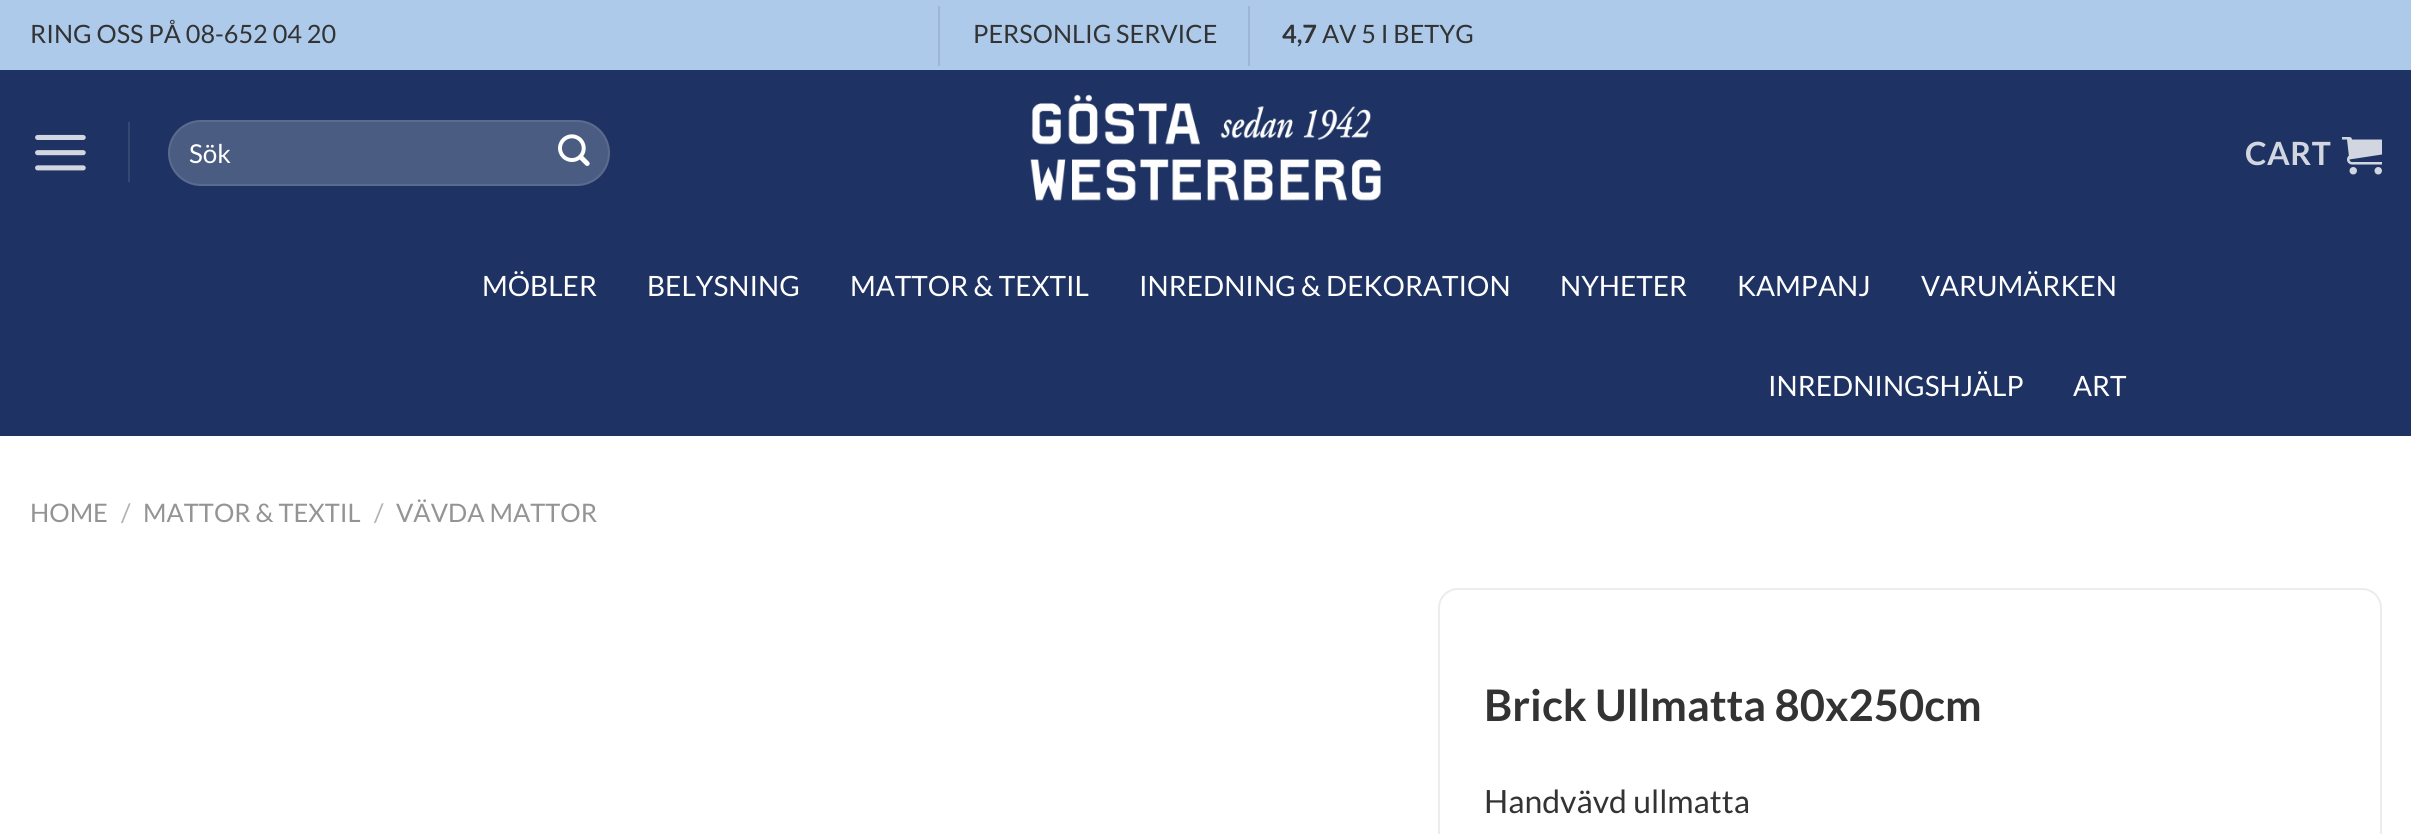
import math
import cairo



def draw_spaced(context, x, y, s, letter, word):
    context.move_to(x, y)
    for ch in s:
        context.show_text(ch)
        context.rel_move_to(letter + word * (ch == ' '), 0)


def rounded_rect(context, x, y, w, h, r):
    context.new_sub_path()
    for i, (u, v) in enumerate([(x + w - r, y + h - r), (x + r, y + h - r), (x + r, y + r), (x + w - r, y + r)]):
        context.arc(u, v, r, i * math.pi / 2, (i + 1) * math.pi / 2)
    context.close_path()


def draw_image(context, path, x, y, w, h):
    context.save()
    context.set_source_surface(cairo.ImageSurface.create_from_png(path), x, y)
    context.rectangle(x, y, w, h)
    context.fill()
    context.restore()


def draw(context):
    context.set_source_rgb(1, 1, 1)
    context.paint()
    context.set_source_rgb(173 / 255, 202 / 255, 235 / 255)
    context.rectangle(0, 0, 2411, 70)
    context.fill()
    context.set_source_rgb(156 / 255, 182 / 255, 212 / 255)
    context.rectangle(938, 6, 2, 60)
    context.fill()
    context.rectangle(1248, 6, 2, 60)
    context.fill()
    context.set_source_rgb(30 / 255, 51 / 255, 99 / 255)
    context.rectangle(0, 70, 2411, 366)
    context.fill()
    draw_image(context, "images/1.png", 35, 134, 51, 37)
    context.set_source_rgb(53 / 255, 71 / 255, 115 / 255)
    context.rectangle(128, 122, 2, 60)
    context.fill()
    context.set_source_rgb(75 / 255, 92 / 255, 130 / 255)
    rounded_rect(context, 168, 120, 442, 66, 33)
    context.fill()
    rounded_rect(context, 169, 121, 440, 64, 32)
    context.set_source_rgba(1, 1, 1, 0.09)
    context.stroke()
    draw_image(context, "images/2.png", 558, 134, 32, 32)
    draw_image(context, "images/3.png", 1030, 94, 351, 107)
    draw_image(context, "images/4.png", 2342, 137, 40, 38)
    rounded_rect(context, 1439, 589, 942, 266, 19)
    context.set_source_rgb(236 / 255, 236 / 255, 236 / 255)
    context.stroke()
    context.select_font_face("Lato")
    context.set_font_size(25.25)
    context.set_source_rgb(51 / 255, 51 / 255, 51 / 255)
    context.move_to(30, 43)
    context.show_text("RING OSS PÅ 08-652 04 20")
    context.move_to(973, 43)
    context.show_text("PERSONLIG SERVICE")
    context.select_font_face("Lato", cairo.FontSlant.NORMAL, cairo.FontWeight.BOLD)
    context.move_to(1282, 43)
    context.show_text("4,7")
    context.select_font_face("Lato")
    context.move_to(1322, 43)
    context.show_text("AV 5 I BETYG")
    context.set_font_size(26)
    context.set_source_rgb(1, 1, 1)
    context.move_to(189, 163)
    context.show_text("Sök")
    context.select_font_face("Lato", cairo.FontSlant.NORMAL, cairo.FontWeight.BOLD)
    context.set_font_size(32)
    context.set_source_rgb(210 / 255, 214 / 255, 224 / 255)
    draw_spaced(context, 2245, 165, "CART", 0.5, 0)
    context.select_font_face("Lato")
    context.set_font_size(28)
    context.set_source_rgb(1, 1, 1)
    context.move_to(482, 296)
    context.show_text("MÖBLER")
    context.move_to(647, 296)
    context.show_text("BELYSNING")
    context.move_to(850, 296)
    context.show_text("MATTOR & TEXTIL")
    context.move_to(1139, 296)
    context.show_text("INREDNING & DEKORATION")
    context.move_to(1560, 296)
    context.show_text("NYHETER")
    context.move_to(1737, 296)
    context.show_text("KAMPANJ")
    context.move_to(1921, 296)
    context.show_text("VARUMÄRKEN")
    context.move_to(1768, 396)
    context.show_text("INREDNINGSHJÄLP")
    context.move_to(2073, 396)
    context.show_text("ART")
    context.set_font_size(25.5)
    context.set_source_rgb(148 / 255, 148 / 255, 148 / 255)
    context.move_to(30, 522)
    context.show_text("HOME")
    context.set_source_rgb(178 / 255, 178 / 255, 178 / 255)
    context.move_to(121, 522)
    context.show_text("/")
    context.set_source_rgb(148 / 255, 148 / 255, 148 / 255)
    context.move_to(143, 522)
    context.show_text("MATTOR & TEXTIL")
    context.set_source_rgb(178 / 255, 178 / 255, 178 / 255)
    context.move_to(374, 522)
    context.show_text("/")
    context.set_source_rgb(148 / 255, 148 / 255, 148 / 255)
    context.move_to(396, 522)
    context.show_text("VÄVDA MATTOR")
    context.select_font_face("Lato", cairo.FontSlant.NORMAL, cairo.FontWeight.BOLD)
    context.set_font_size(43.5)
    context.set_source_rgb(51 / 255, 51 / 255, 51 / 255)
    context.move_to(1484, 721)
    context.show_text("Brick Ullmatta 80x250cm")
    context.select_font_face("Lato")
    context.set_font_size(32)
    context.move_to(1484, 813)
    context.show_text("Handvävd ullmatta")


surface = cairo.ImageSurface(cairo.Format.RGB24, 2411, 834)
context = cairo.Context(surface)
options = cairo.FontOptions()
options.set_hint_metrics(cairo.HintMetrics.OFF)
options.set_hint_style(cairo.HintStyle.NONE)
context.set_font_options(options)
context.set_miter_limit(4)
draw(context)
surface.write_to_png("out.png")
